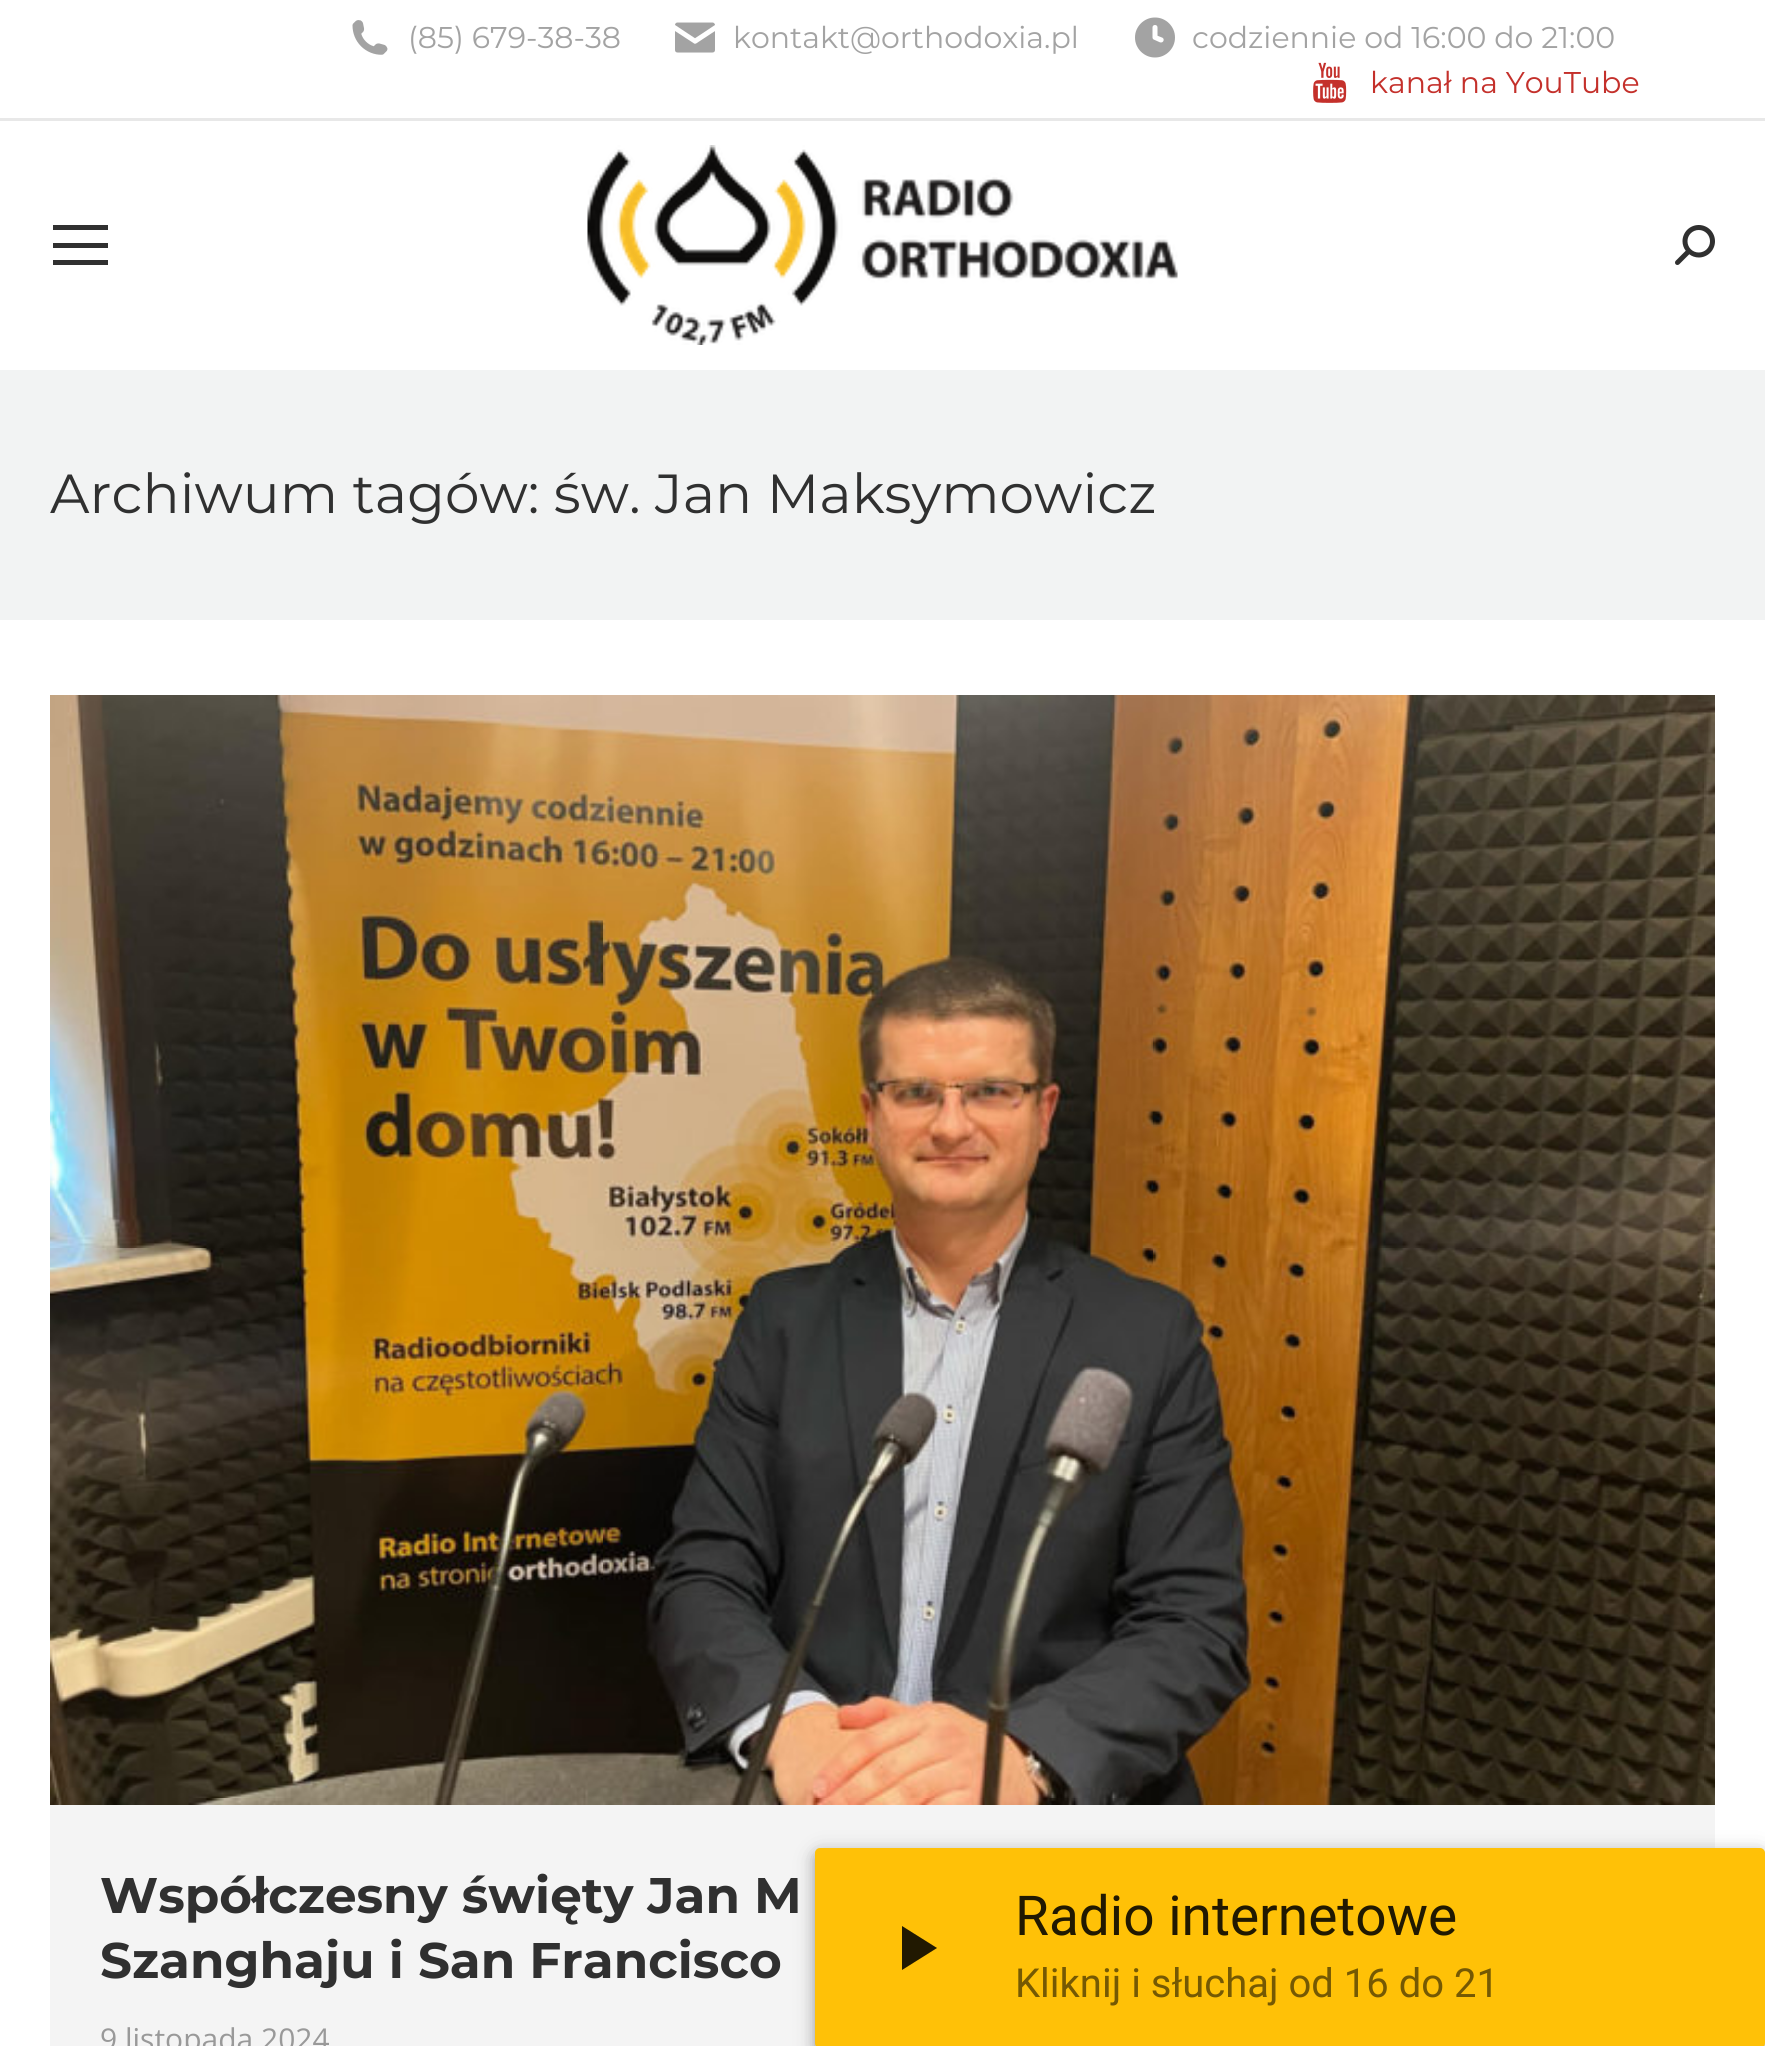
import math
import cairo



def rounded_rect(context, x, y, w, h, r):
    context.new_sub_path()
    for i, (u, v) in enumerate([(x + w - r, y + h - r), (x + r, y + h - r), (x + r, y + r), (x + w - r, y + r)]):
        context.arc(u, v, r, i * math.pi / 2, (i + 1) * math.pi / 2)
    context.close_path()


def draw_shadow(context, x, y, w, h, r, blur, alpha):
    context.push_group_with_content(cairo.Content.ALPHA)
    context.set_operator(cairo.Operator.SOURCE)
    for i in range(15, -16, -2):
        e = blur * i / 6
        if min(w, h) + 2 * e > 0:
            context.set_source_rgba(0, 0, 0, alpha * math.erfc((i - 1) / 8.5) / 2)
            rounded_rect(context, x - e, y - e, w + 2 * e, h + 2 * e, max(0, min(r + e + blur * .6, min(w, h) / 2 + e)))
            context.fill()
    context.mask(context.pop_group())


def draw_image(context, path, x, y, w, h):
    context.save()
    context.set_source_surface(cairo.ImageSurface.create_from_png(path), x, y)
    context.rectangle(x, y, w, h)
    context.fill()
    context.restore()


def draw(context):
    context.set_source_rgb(1, 1, 1)
    context.paint()
    draw_image(context, "images/1.png", 352, 20, 36, 35)
    draw_image(context, "images/2.png", 675, 22, 40, 31)
    draw_image(context, "images/3.png", 1135, 17, 40, 41)
    draw_image(context, "images/4.png", 1313, 62, 34, 41)
    context.set_source_rgb(232 / 255, 232 / 255, 232 / 255)
    context.rectangle(0, 118, 1765, 3)
    context.fill()
    context.set_source_rgb(48 / 255, 48 / 255, 48 / 255)
    context.rectangle(53, 225, 55, 5)
    context.fill()
    context.rectangle(53, 243, 55, 5)
    context.fill()
    context.rectangle(53, 260, 55, 5)
    context.fill()
    draw_image(context, "images/5.png", 587, 145, 591, 200)
    draw_image(context, "images/6.png", 1675, 225, 40, 40)
    context.set_source_rgb(242 / 255, 243 / 255, 243 / 255)
    context.rectangle(0, 370, 1765, 250)
    context.fill()
    context.set_source_rgb(244 / 255, 244 / 255, 244 / 255)
    context.rectangle(50, 1805, 1665, 241)
    context.fill()
    draw_image(context, "images/7.png", 50, 695, 1665, 1110)
    context.set_source_rgb(0, 0, 0)
    draw_shadow(context, 815, 1853, 950, 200, 5, 12.5, 0.16)
    draw_shadow(context, 815, 1853, 950, 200, 5, 6, 0.26)
    context.set_source_rgb(1, 193 / 255, 7 / 255)
    rounded_rect(context, 815, 1848, 950, 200, 5)
    context.fill()
    context.set_source_rgb(33 / 255, 25 / 255, 1 / 255)
    context.new_path()
    context.move_to(902, 1926)
    context.line_to(902, 1970)
    context.line_to(937, 1948)
    context.close_path()
    context.fill()
    context.select_font_face("Montserrat")
    context.set_font_size(30)
    context.set_source_rgb(163 / 255, 163 / 255, 163 / 255)
    context.move_to(408, 48)
    context.show_text("(85) 679-38-38")
    context.move_to(733, 48)
    context.show_text("kontakt@orthodoxia.pl")
    context.move_to(1192, 48)
    context.show_text("codziennie od 16:00 do 21:00")
    context.set_source_rgb(196 / 255, 48 / 255, 43 / 255)
    context.move_to(1370, 93)
    context.show_text("kanał na YouTube")
    context.set_font_size(55)
    context.set_source_rgb(48 / 255, 48 / 255, 48 / 255)
    context.move_to(50, 513)
    context.show_text("Archiwum tagów: św. Jan Maksymowicz")
    context.select_font_face("Montserrat", cairo.FontSlant.NORMAL, cairo.FontWeight.BOLD)
    context.set_font_size(50)
    context.move_to(100, 1913)
    context.show_text("Współczesny święty Jan M")
    context.move_to(100, 1978)
    context.show_text("Szanghaju i San Francisco")
    context.select_font_face("Open Sans")
    context.set_font_size(30)
    context.set_source_rgb(153 / 255, 153 / 255, 153 / 255)
    context.move_to(100, 2050)
    context.show_text("9 listopada 2024")
    context.select_font_face("Roboto")
    context.set_font_size(55)
    context.set_source_rgb(33 / 255, 25 / 255, 1 / 255)
    context.move_to(1015, 1935)
    context.show_text("Radio internetowe")
    context.set_font_size(40)
    context.set_source_rgb(117 / 255, 89 / 255, 3 / 255)
    context.move_to(1015, 1997)
    context.show_text("Kliknij i słuchaj od 16 do 21")


surface = cairo.ImageSurface(cairo.Format.RGB24, 1765, 2046)
context = cairo.Context(surface)
options = cairo.FontOptions()
options.set_hint_metrics(cairo.HintMetrics.OFF)
options.set_hint_style(cairo.HintStyle.NONE)
context.set_font_options(options)
context.set_miter_limit(4)
draw(context)
surface.write_to_png("out.png")
